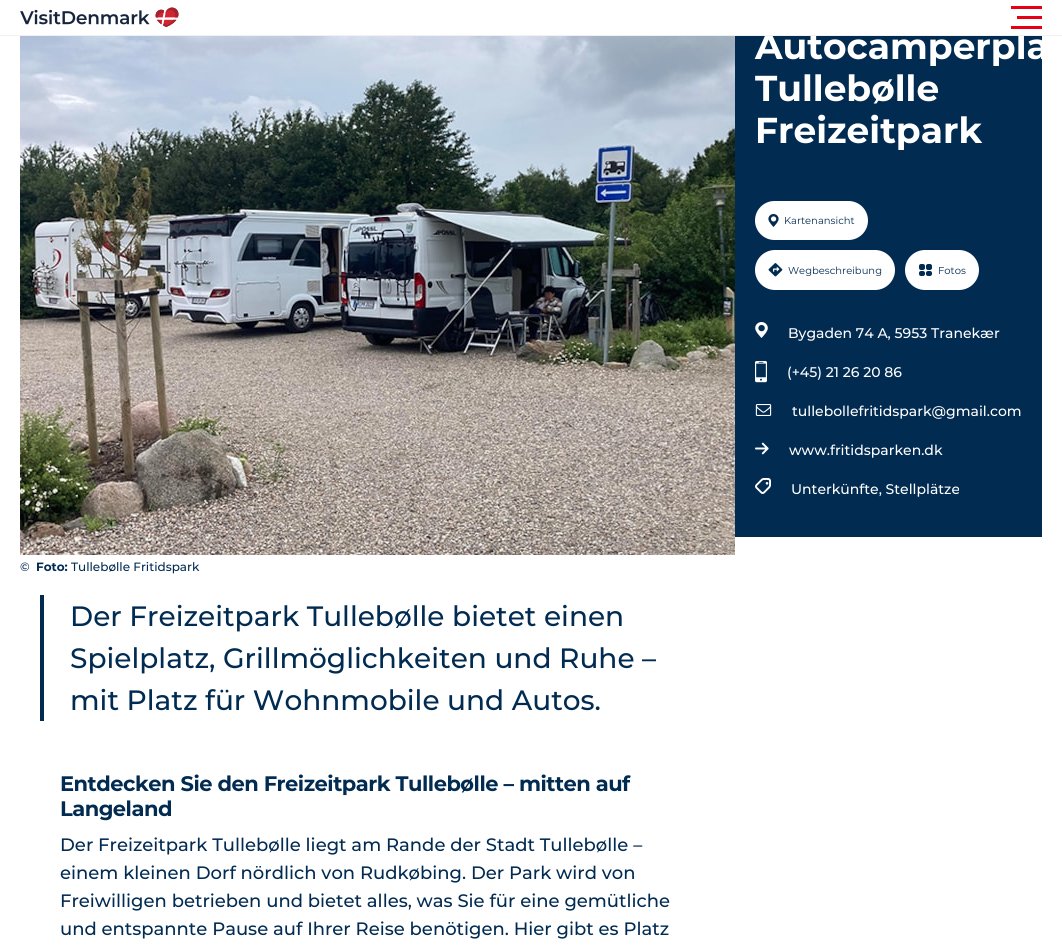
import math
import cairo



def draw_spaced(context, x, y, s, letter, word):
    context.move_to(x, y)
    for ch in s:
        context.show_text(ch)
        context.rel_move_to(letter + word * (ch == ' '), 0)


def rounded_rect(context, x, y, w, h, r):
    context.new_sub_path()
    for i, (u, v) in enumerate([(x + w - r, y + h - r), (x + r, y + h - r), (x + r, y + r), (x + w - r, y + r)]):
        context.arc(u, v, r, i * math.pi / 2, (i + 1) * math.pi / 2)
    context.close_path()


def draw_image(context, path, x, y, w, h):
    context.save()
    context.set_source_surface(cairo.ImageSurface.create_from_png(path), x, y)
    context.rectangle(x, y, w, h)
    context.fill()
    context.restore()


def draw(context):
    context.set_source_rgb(1, 1, 1)
    context.paint()
    draw_image(context, "images/1.png", 20, 7, 159, 20)
    context.set_source_rgb(231 / 255, 0, 19 / 255)
    context.rectangle(1011, 6, 31, 3)
    context.fill()
    context.rectangle(1017, 16, 25, 3)
    context.fill()
    context.rectangle(1011, 26, 31, 3)
    context.fill()
    context.set_source_rgb(2 / 255, 43 / 255, 82 / 255)
    context.rectangle(735, 36, 307, 501)
    context.fill()
    context.set_source_rgb(1, 1, 1)
    rounded_rect(context, 755, 201, 113, 39, 19.5)
    context.fill()
    draw_image(context, "images/2.png", 768, 214, 11, 13)
    rounded_rect(context, 755, 250, 140, 40, 20)
    context.fill()
    draw_image(context, "images/3.png", 768, 263, 15, 14)
    rounded_rect(context, 905, 250, 74, 40, 20)
    context.fill()
    draw_image(context, "images/4.png", 919, 264, 13, 12)
    draw_image(context, "images/5.png", 755, 322, 13, 16)
    draw_image(context, "images/6.png", 755, 361, 12, 22)
    draw_image(context, "images/7.png", 755, 404, 17, 12)
    draw_image(context, "images/8.png", 755, 442, 14, 13)
    draw_image(context, "images/9.png", 755, 478, 16, 16)
    draw_image(context, "images/10.png", 20, 36, 715, 519)
    context.set_source_rgb(2 / 255, 43 / 255, 82 / 255)
    context.rectangle(40, 595, 4, 126)
    context.fill()
    context.select_font_face("Montserrat", cairo.FontSlant.NORMAL, cairo.FontWeight.BOLD)
    context.set_font_size(36)
    context.set_source_rgb(1, 1, 1)
    context.move_to(755, 59)
    context.show_text("Autocamperpla")
    context.set_source_rgb(240 / 255, 241 / 255, 243 / 255)
    context.rectangle(0, 35, 1062, 1)
    context.fill()
    context.set_source_rgb(1, 1, 1)
    context.move_to(755, 101)
    context.show_text("Tullebølle")
    context.move_to(755, 143)
    context.show_text("Freizeitpark")
    context.select_font_face("Montserrat")
    context.set_font_size(10)
    context.set_source_rgb(2 / 255, 43 / 255, 82 / 255)
    context.move_to(784, 224)
    context.show_text("Kartenansicht")
    context.move_to(788, 274)
    context.show_text("Wegbeschreibung")
    context.move_to(938, 274)
    context.show_text("Fotos")
    context.select_font_face("Montserrat Medium")
    context.set_font_size(14)
    context.set_source_rgb(1, 1, 1)
    context.move_to(788, 338)
    context.show_text("Bygaden 74 A, 5953 Tranekær")
    context.move_to(787, 377)
    context.show_text("(+45) 21 26 20 86")
    context.move_to(792, 416)
    context.show_text("tullebollefritidspark@gmail.com")
    context.move_to(789, 455)
    context.show_text("www.fritidsparken.dk")
    context.move_to(791, 494)
    context.show_text("Unterkünfte, Stellplätze")
    context.set_font_size(12)
    context.set_source_rgb(2 / 255, 43 / 255, 82 / 255)
    context.move_to(20, 571)
    context.show_text("©")
    context.select_font_face("Montserrat", cairo.FontSlant.NORMAL, cairo.FontWeight.BOLD)
    context.move_to(36, 571)
    context.show_text("Foto:")
    context.select_font_face("Montserrat Medium")
    context.move_to(71, 571)
    context.show_text("Tullebølle Fritidspark")
    context.set_font_size(28)
    context.move_to(70, 626)
    context.show_text("Der Freizeitpark Tullebølle bietet einen")
    context.move_to(70, 668)
    context.show_text("Spielplatz, Grillmöglichkeiten und Ruhe –")
    context.move_to(70, 710)
    context.show_text("mit Platz für Wohnmobile und Autos.")
    context.select_font_face("Montserrat", cairo.FontSlant.NORMAL, cairo.FontWeight.BOLD)
    context.set_font_size(21)
    draw_spaced(context, 60, 791, "Entdecken Sie den Freizeitpark Tullebølle – mitten auf", -0.5, 0)
    draw_spaced(context, 60, 816, "Langeland", -0.5, 0)
    context.select_font_face("Montserrat Medium")
    context.set_font_size(18)
    context.move_to(60, 851)
    context.show_text("Der Freizeitpark Tullebølle liegt am Rande der Stadt Tullebølle –")
    context.move_to(60, 879)
    context.show_text("einem kleinen Dorf nördlich von Rudkøbing. Der Park wird von")
    context.move_to(60, 907)
    context.show_text("Freiwilligen betrieben und bietet alles, was Sie für eine gemütliche")
    context.move_to(60, 935)
    context.show_text("und entspannte Pause auf Ihrer Reise benötigen. Hier gibt es Platz")


surface = cairo.ImageSurface(cairo.Format.RGB24, 1062, 952)
context = cairo.Context(surface)
options = cairo.FontOptions()
options.set_hint_metrics(cairo.HintMetrics.OFF)
options.set_hint_style(cairo.HintStyle.NONE)
context.set_font_options(options)
context.set_miter_limit(4)
draw(context)
surface.write_to_png("out.png")
